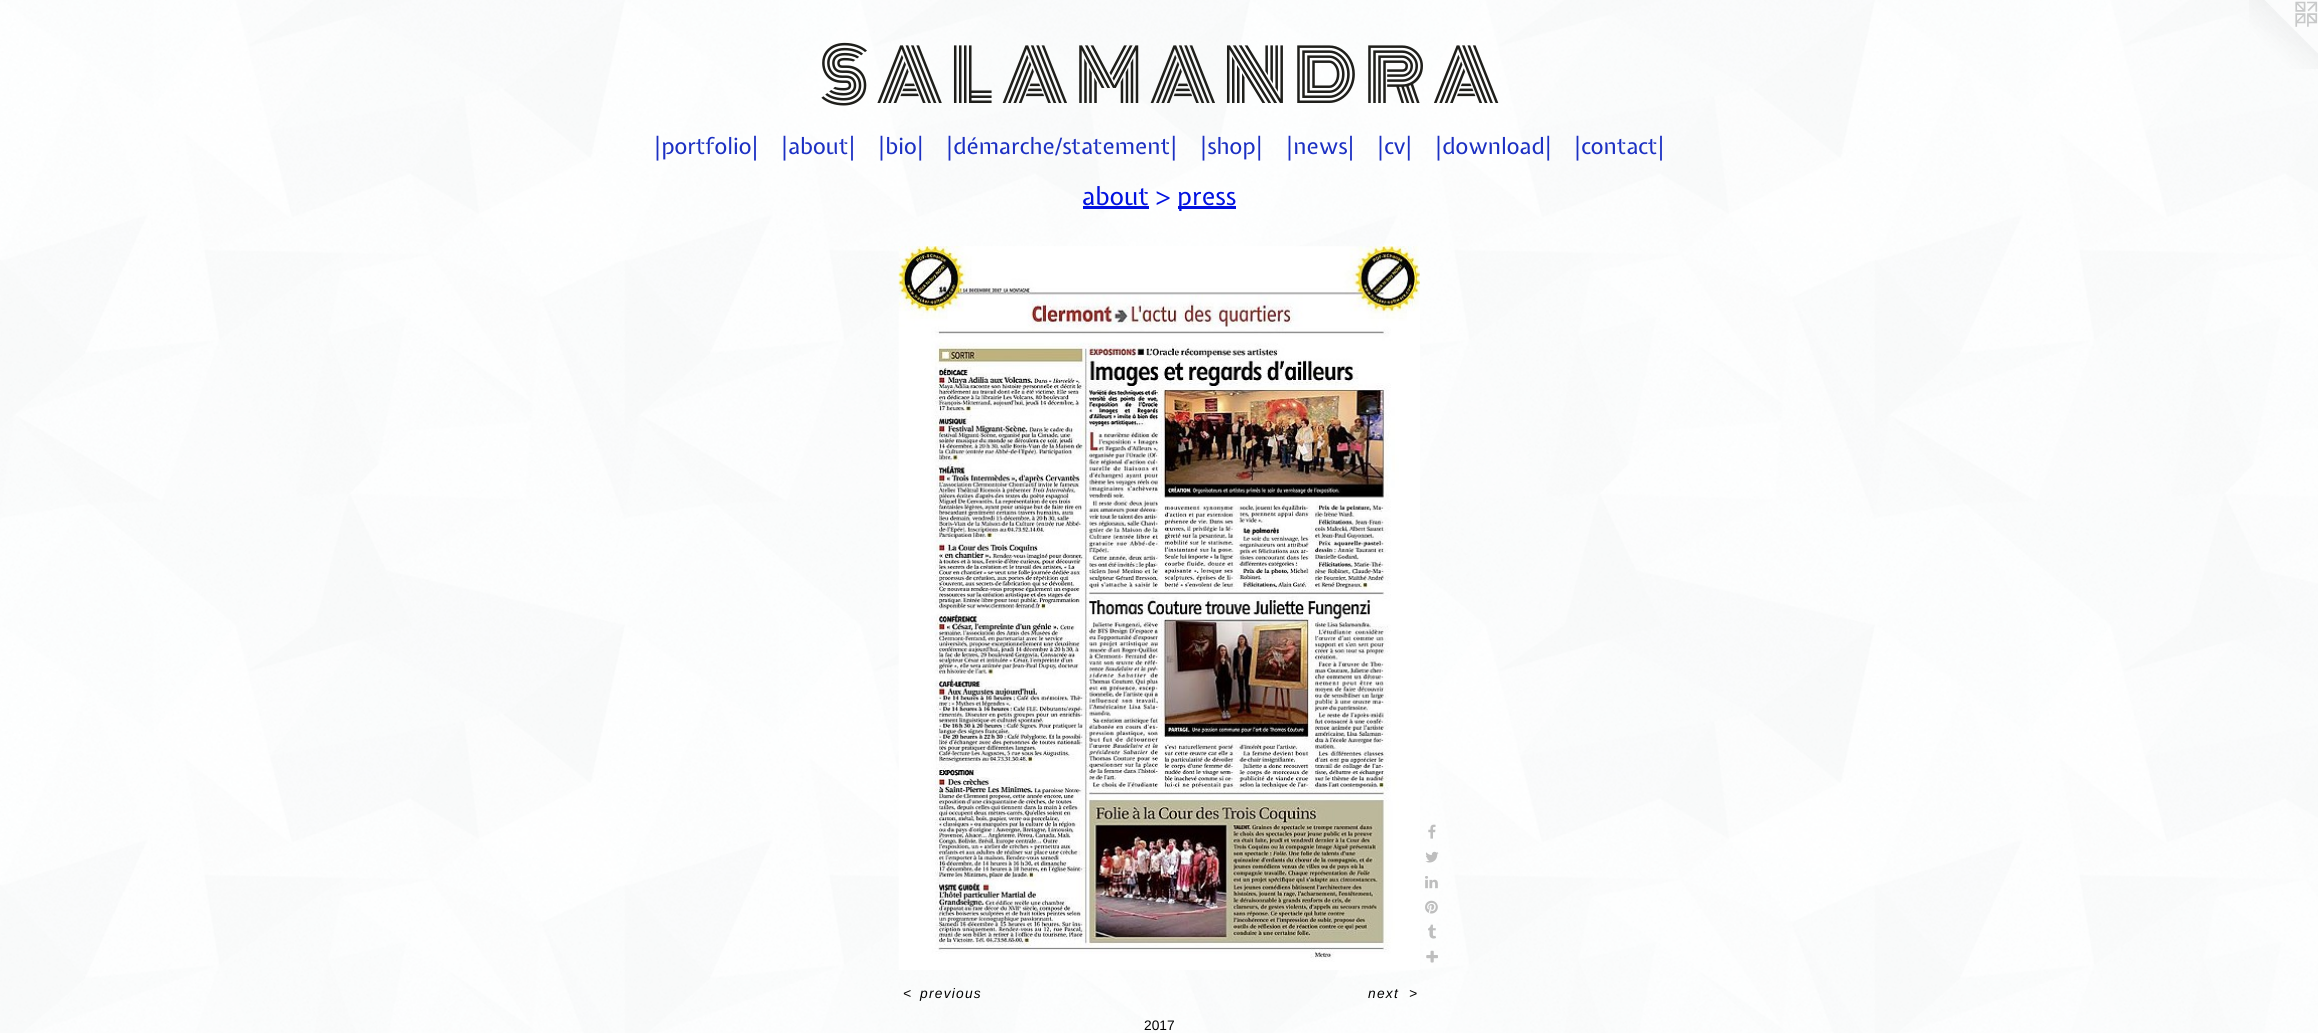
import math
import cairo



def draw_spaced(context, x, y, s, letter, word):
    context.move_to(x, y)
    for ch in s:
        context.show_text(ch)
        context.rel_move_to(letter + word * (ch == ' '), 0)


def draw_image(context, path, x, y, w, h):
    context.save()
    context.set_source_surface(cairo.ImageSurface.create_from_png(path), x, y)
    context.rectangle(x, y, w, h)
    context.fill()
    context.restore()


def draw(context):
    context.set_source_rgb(1, 1, 1)
    context.paint()
    draw_image(context, "images/1.png", 0, 0, 2318, 1033)
    draw_image(context, "images/2.png", 2249, 0, 69, 69)
    context.set_source_rgb(2 / 255, 18 / 255, 224 / 255)
    context.rectangle(1083, 206, 66, 3)
    context.fill()
    context.rectangle(1178, 206, 58, 3)
    context.fill()
    draw_image(context, "images/3.png", 898, 246, 522, 724)
    draw_image(context, "images/4.png", 1428, 824, 8, 15)
    draw_image(context, "images/5.png", 1425, 851, 14, 12)
    draw_image(context, "images/6.png", 1425, 876, 13, 13)
    draw_image(context, "images/7.png", 1425, 900, 13, 14)
    draw_image(context, "images/8.png", 1428, 924, 8, 15)
    draw_image(context, "images/9.png", 1426, 950, 12, 13)
    context.select_font_face("Monoton")
    context.set_font_size(71.25)
    context.set_source_rgb(31 / 255, 31 / 255, 27 / 255)
    context.move_to(820, 103)
    context.show_text("S A L A M A N D R A")
    context.select_font_face("Expletus Sans")
    context.set_font_size(22.5)
    context.set_source_rgb(28 / 255, 48 / 255, 195 / 255)
    context.move_to(654, 154)
    context.show_text("|portfolio|")
    context.move_to(781, 154)
    context.show_text("|about|")
    context.move_to(878, 154)
    context.show_text("|bio|")
    context.move_to(946, 154)
    context.show_text("|démarche/statement|")
    context.move_to(1200, 154)
    context.show_text("|shop|")
    context.move_to(1286, 154)
    context.show_text("|news|")
    context.move_to(1377, 154)
    context.show_text("|cv|")
    context.move_to(1435, 154)
    context.show_text("|download|")
    context.move_to(1574, 154)
    context.show_text("|contact|")
    context.set_font_size(25)
    context.set_source_rgb(2 / 255, 18 / 255, 224 / 255)
    context.move_to(1082, 205)
    context.show_text("about >")
    context.move_to(1177, 205)
    context.show_text("press")
    context.select_font_face("Liberation Sans", cairo.FontSlant.ITALIC)
    context.set_font_size(13.75)
    context.set_source_rgb(0, 0, 0)
    draw_spaced(context, 903, 998, "<", 1.25, 0)
    draw_spaced(context, 920, 998, "previous", 1.25, 0)
    draw_spaced(context, 1368, 998, "next", 1.25, 0)
    draw_spaced(context, 1409, 998, ">", 1.25, 0)
    context.select_font_face("Liberation Sans")
    context.move_to(1144, 1030)
    context.show_text("2017")


surface = cairo.ImageSurface(cairo.Format.RGB24, 2318, 1033)
context = cairo.Context(surface)
options = cairo.FontOptions()
options.set_hint_metrics(cairo.HintMetrics.OFF)
options.set_hint_style(cairo.HintStyle.NONE)
context.set_font_options(options)
context.set_miter_limit(4)
draw(context)
surface.write_to_png("out.png")
